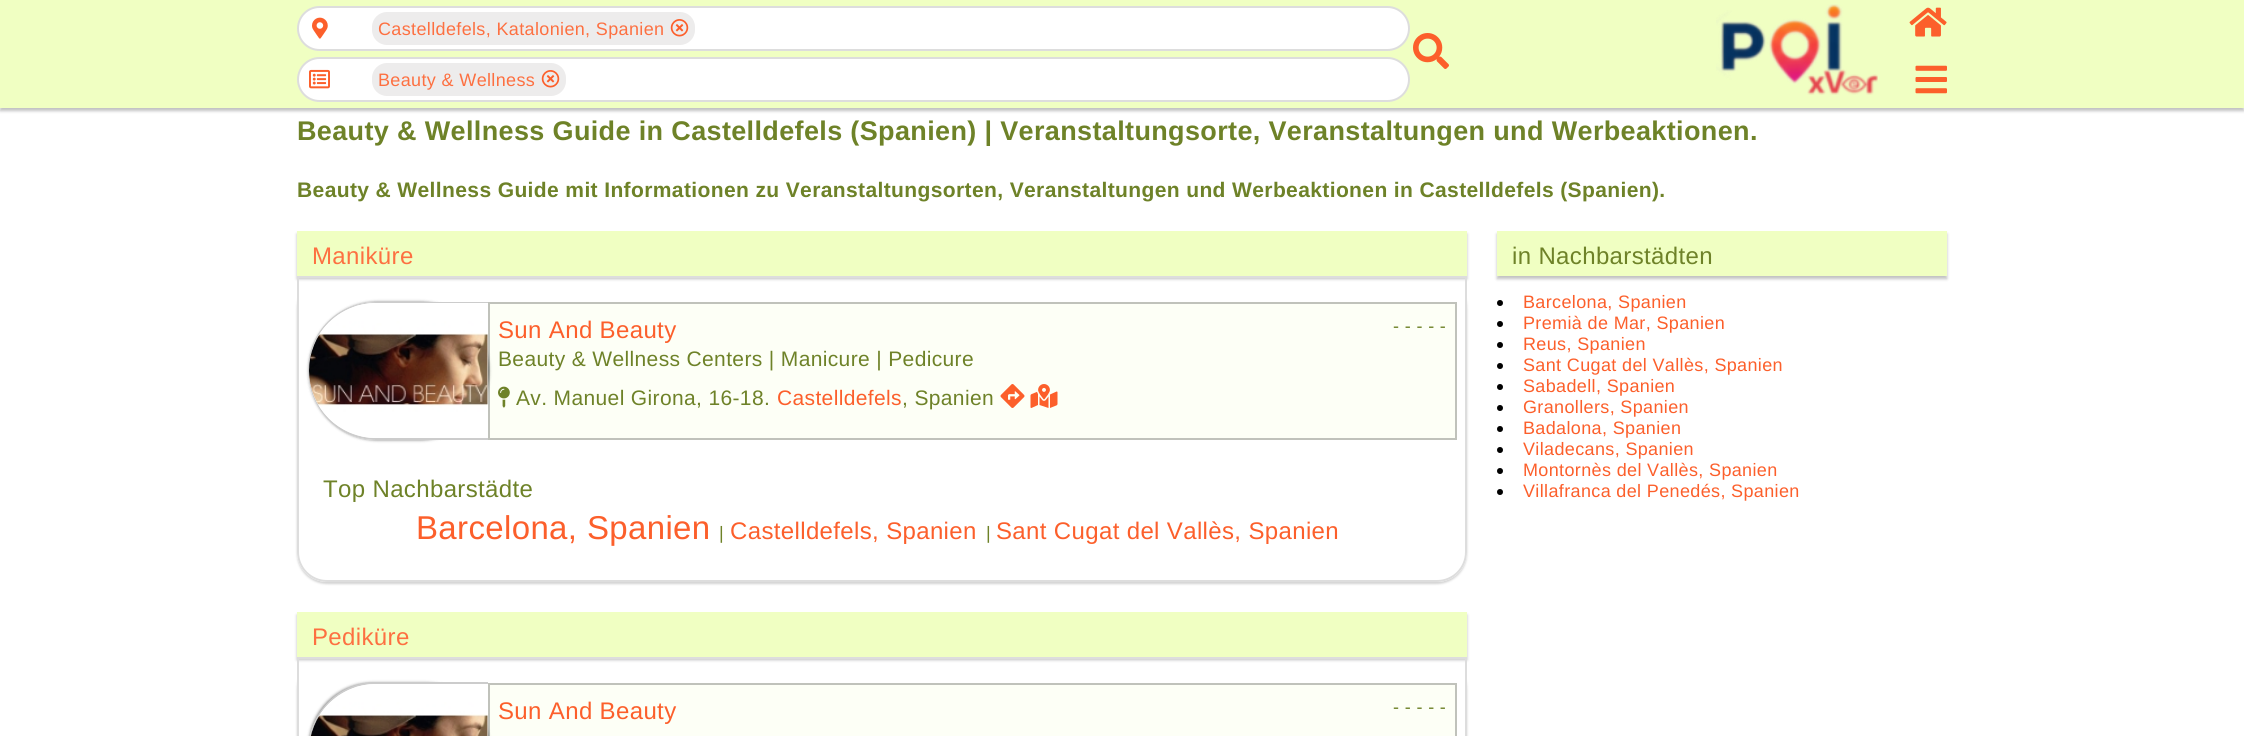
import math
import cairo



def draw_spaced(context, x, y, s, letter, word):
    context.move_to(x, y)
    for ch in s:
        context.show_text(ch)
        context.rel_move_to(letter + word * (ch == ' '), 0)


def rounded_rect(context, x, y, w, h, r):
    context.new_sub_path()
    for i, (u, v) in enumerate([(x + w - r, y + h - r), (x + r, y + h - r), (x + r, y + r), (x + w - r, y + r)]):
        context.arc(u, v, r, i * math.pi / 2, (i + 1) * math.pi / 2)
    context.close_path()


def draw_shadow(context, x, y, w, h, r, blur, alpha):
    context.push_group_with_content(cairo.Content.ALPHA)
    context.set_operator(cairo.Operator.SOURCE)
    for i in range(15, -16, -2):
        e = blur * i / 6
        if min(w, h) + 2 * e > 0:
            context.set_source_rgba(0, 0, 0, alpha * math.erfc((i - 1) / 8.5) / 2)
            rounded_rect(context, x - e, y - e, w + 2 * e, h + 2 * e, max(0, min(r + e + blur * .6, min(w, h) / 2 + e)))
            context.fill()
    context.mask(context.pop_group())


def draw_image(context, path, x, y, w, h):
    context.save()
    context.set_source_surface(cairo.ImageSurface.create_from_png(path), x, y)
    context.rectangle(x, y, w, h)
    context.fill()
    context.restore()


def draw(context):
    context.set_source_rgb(1, 1, 1)
    context.paint()
    context.set_source_rgb(32 / 255, 33 / 255, 36 / 255)
    draw_shadow(context, 0, 3, 2244, 108, 0, 1.5, 0.28)
    context.set_source_rgb(240 / 255, 1, 194 / 255)
    context.rectangle(0, 0, 2244, 108)
    context.fill()
    context.set_source_rgb(1, 1, 1)
    rounded_rect(context, 298, 7, 1111, 43, 21.5)
    context.fill_preserve()
    context.set_source_rgb(221 / 255, 221 / 255, 221 / 255)
    context.stroke()
    draw_image(context, "images/1.png", 312, 17, 16, 22)
    context.set_source_rgb(237 / 255, 236 / 255, 236 / 255)
    rounded_rect(context, 372, 12, 323, 33, 15)
    context.fill()
    draw_image(context, "images/2.png", 670, 19, 19, 18)
    context.set_source_rgb(1, 1, 1)
    rounded_rect(context, 298, 58, 1111, 43, 21.5)
    context.fill_preserve()
    context.set_source_rgb(221 / 255, 221 / 255, 221 / 255)
    context.stroke()
    draw_image(context, "images/3.png", 309, 69, 21, 20)
    context.set_source_rgb(237 / 255, 236 / 255, 236 / 255)
    rounded_rect(context, 372, 63, 194, 33, 15)
    context.fill()
    draw_image(context, "images/2.png", 541, 70, 19, 18)
    draw_image(context, "images/4.png", 1413, 33, 36, 36)
    draw_image(context, "images/5.png", 1716, 4, 162, 91)
    draw_image(context, "images/6.png", 1909, 7, 38, 30)
    draw_image(context, "images/7.png", 1915, 65, 32, 29)
    context.set_source_rgb(32 / 255, 33 / 255, 36 / 255)
    draw_shadow(context, 297, 234, 1170, 45, 0, 1.5, 0.28)
    context.set_source_rgb(240 / 255, 1, 194 / 255)
    context.rectangle(297, 231, 1170, 45)
    context.fill()
    context.save()
    context.set_fill_rule(cairo.FillRule.EVEN_ODD)
    context.new_path()
    context.move_to(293, 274)
    context.line_to(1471, 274)
    context.line_to(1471, 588)
    context.line_to(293, 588)
    context.close_path()
    context.move_to(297, 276)
    context.line_to(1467, 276)
    context.line_to(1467, 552)
    context.curve_to(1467, 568.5, 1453.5, 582, 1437, 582)
    context.line_to(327, 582)
    context.curve_to(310.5, 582, 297, 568.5, 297, 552)
    context.close_path()
    context.clip()
    context.set_source_rgb(212 / 255, 212 / 255, 212 / 255)
    draw_shadow(context, 297, 278, 1170, 306, 30, 1, 1)
    context.restore()
    context.new_path()
    context.move_to(298, 277)
    context.line_to(1466, 277)
    context.line_to(1466, 552)
    context.curve_to(1466, 568, 1453, 581, 1437, 581)
    context.line_to(327, 581)
    context.curve_to(311, 581, 298, 568, 298, 552)
    context.close_path()
    context.set_source_rgb(221 / 255, 221 / 255, 221 / 255)
    context.stroke()
    context.save()
    context.set_fill_rule(cairo.FillRule.EVEN_ODD)
    context.new_path()
    context.move_to(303, 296)
    context.line_to(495, 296)
    context.line_to(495, 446)
    context.line_to(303, 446)
    context.close_path()
    context.move_to(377, 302)
    context.line_to(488, 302)
    context.line_to(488, 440)
    context.line_to(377, 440)
    context.curve_to(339, 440, 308, 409, 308, 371)
    context.curve_to(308, 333, 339, 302, 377, 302)
    context.close_path()
    context.clip()
    context.set_source_rgb(0, 0, 0)
    draw_shadow(context, 309, 302, 180, 138, 69, 1.5, 0.51)
    context.restore()
    context.set_source_rgb(204 / 255, 204 / 255, 204 / 255)
    context.set_fill_rule(cairo.FillRule.EVEN_ODD)
    context.new_path()
    context.move_to(376, 302)
    context.line_to(488, 302)
    context.line_to(488, 440)
    context.line_to(376, 440)
    context.curve_to(338, 440, 308, 409, 308, 370)
    context.curve_to(308, 332, 338, 302, 376, 302)
    context.close_path()
    context.move_to(376, 303)
    context.line_to(488, 303)
    context.line_to(488, 438)
    context.line_to(376, 438)
    context.curve_to(339, 438, 309, 408, 309, 370)
    context.curve_to(309, 333, 339, 303, 376, 303)
    context.close_path()
    context.fill()
    draw_image(context, "images/8.png", 309, 303, 179, 135)
    context.set_source_rgba(235 / 255, 1, 162 / 255, 0.1)
    context.rectangle(488, 302, 969, 138)
    context.fill()
    context.rectangle(489, 303, 967, 136)
    context.set_source_rgba(0, 0, 0, 0.24)
    context.stroke()
    draw_image(context, "images/9.png", 498, 386, 12, 22)
    draw_image(context, "images/10.png", 1000, 384, 25, 24)
    draw_image(context, "images/11.png", 1030, 384, 28, 24)
    context.set_source_rgb(32 / 255, 33 / 255, 36 / 255)
    draw_shadow(context, 297, 615, 1170, 45, 0, 1.5, 0.28)
    context.set_source_rgb(240 / 255, 1, 194 / 255)
    context.rectangle(297, 612, 1170, 45)
    context.fill()
    context.save()
    context.new_path()
    context.move_to(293, 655)
    context.line_to(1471, 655)
    context.line_to(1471, 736)
    context.line_to(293, 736)
    context.close_path()
    context.move_to(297, 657)
    context.line_to(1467, 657)
    context.line_to(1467, 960)
    context.curve_to(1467, 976.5, 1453.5, 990, 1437, 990)
    context.line_to(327, 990)
    context.curve_to(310.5, 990, 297, 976.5, 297, 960)
    context.close_path()
    context.clip()
    context.set_source_rgb(212 / 255, 212 / 255, 212 / 255)
    draw_shadow(context, 297, 659, 1170, 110, 30, 1, 1)
    context.restore()
    context.rectangle(298, 658, 1168, 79)
    context.set_source_rgb(221 / 255, 221 / 255, 221 / 255)
    context.stroke()
    context.save()
    context.new_path()
    context.move_to(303, 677)
    context.line_to(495, 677)
    context.line_to(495, 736)
    context.line_to(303, 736)
    context.close_path()
    context.move_to(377, 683)
    context.line_to(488, 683)
    context.line_to(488, 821)
    context.line_to(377, 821)
    context.curve_to(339, 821, 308, 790, 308, 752)
    context.curve_to(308, 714, 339, 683, 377, 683)
    context.close_path()
    context.clip()
    context.set_source_rgb(0, 0, 0)
    draw_shadow(context, 309, 683, 180, 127, 69, 1.5, 0.51)
    context.restore()
    context.set_source_rgb(204 / 255, 204 / 255, 204 / 255)
    context.new_path()
    context.move_to(376, 682)
    context.line_to(488, 682)
    context.line_to(488, 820)
    context.line_to(376, 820)
    context.curve_to(338, 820, 308, 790, 308, 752)
    context.curve_to(308, 713, 338, 682, 376, 682)
    context.close_path()
    context.move_to(376, 684)
    context.line_to(488, 684)
    context.line_to(488, 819)
    context.line_to(376, 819)
    context.curve_to(339, 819, 309, 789, 309, 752)
    context.curve_to(309, 714, 339, 684, 376, 684)
    context.close_path()
    context.fill()
    draw_image(context, "images/12.png", 310, 684, 178, 52)
    context.set_source_rgba(235 / 255, 1, 162 / 255, 0.1)
    context.rectangle(488, 683, 969, 53)
    context.fill()
    context.rectangle(489, 684, 967, 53)
    context.set_source_rgba(0, 0, 0, 0.24)
    context.stroke()
    context.set_source_rgb(32 / 255, 33 / 255, 36 / 255)
    draw_shadow(context, 1497, 234, 450, 45, 0, 1.5, 0.28)
    context.set_source_rgb(240 / 255, 1, 194 / 255)
    context.rectangle(1497, 231, 450, 45)
    context.fill()
    context.set_source_rgb(0, 0, 0)
    context.arc(1500, 303, 3, 0, 2 * math.pi)
    context.fill()
    context.arc(1500, 324, 3, 0, 2 * math.pi)
    context.fill()
    context.arc(1500, 345, 3, 0, 2 * math.pi)
    context.fill()
    context.arc(1500, 366, 3, 0, 2 * math.pi)
    context.fill()
    context.arc(1500, 387, 3, 0, 2 * math.pi)
    context.fill()
    context.arc(1500, 408, 3, 0, 2 * math.pi)
    context.fill()
    context.arc(1500, 429, 3, 0, 2 * math.pi)
    context.fill()
    context.arc(1500, 450, 3, 0, 2 * math.pi)
    context.fill()
    context.arc(1500, 471, 3, 0, 2 * math.pi)
    context.fill()
    context.arc(1500, 492, 3, 0, 2 * math.pi)
    context.fill()
    context.select_font_face("Liberation Sans")
    context.set_font_size(18)
    context.set_source_rgb(253 / 255, 112 / 255, 65 / 255)
    draw_spaced(context, 378, 35, "Castelldefels, Katalonien, Spanien", 0.36, 0)
    draw_spaced(context, 378, 86, "Beauty & Wellness", 0.36, 0)
    context.select_font_face("Liberation Sans", cairo.FontSlant.NORMAL, cairo.FontWeight.BOLD)
    context.set_font_size(27)
    context.set_source_rgb(110 / 255, 130 / 255, 40 / 255)
    draw_spaced(context, 297, 140, "Beauty & Wellness Guide in Castelldefels (Spanien) | Veranstaltungsorte, Veranstaltungen und Werbeaktionen.", 0.36, 0)
    context.set_font_size(21.05)
    draw_spaced(context, 297, 197, "Beauty & Wellness Guide mit Informationen zu Veranstaltungsorten, Veranstaltungen und Werbeaktionen in Castelldefels (Spanien).", 0.36, 0)
    context.select_font_face("Liberation Sans")
    context.set_font_size(24)
    context.set_source_rgb(253 / 255, 112 / 255, 65 / 255)
    draw_spaced(context, 312, 264, "Maniküre", 0.36, 0)
    context.set_source_rgb(252 / 255, 95 / 255, 43 / 255)
    draw_spaced(context, 498, 338, "Sun And Beauty", 0.36, 0)
    context.set_font_size(18)
    context.set_source_rgb(110 / 255, 130 / 255, 40 / 255)
    draw_spaced(context, 1393, 332, "- - - - -", 0.36, 0)
    context.set_font_size(21)
    draw_spaced(context, 498, 366, "Beauty & Wellness Centers | Manicure | Pedicure", 0.36, 0)
    draw_spaced(context, 516, 405, "Av. Manuel Girona, 16-18.", 0.36, 0)
    context.set_source_rgb(252 / 255, 95 / 255, 43 / 255)
    draw_spaced(context, 777, 405, "Castelldefels", 0.36, 0)
    context.set_source_rgb(110 / 255, 130 / 255, 40 / 255)
    draw_spaced(context, 902, 405, ", Spanien", 0.36, 0)
    context.set_font_size(24)
    draw_spaced(context, 323, 497, "Top Nachbarstädte", 0.36, 0)
    context.set_font_size(33)
    context.set_source_rgb(252 / 255, 95 / 255, 43 / 255)
    draw_spaced(context, 416, 539, "Barcelona, Spanien", 0.36, 0)
    context.set_font_size(18)
    context.set_source_rgb(110 / 255, 130 / 255, 40 / 255)
    draw_spaced(context, 719, 539, "|", 0.36, 0)
    context.set_font_size(24)
    context.set_source_rgb(252 / 255, 95 / 255, 43 / 255)
    draw_spaced(context, 730, 539, "Castelldefels, Spanien", 0.36, 0)
    context.set_font_size(18)
    context.set_source_rgb(110 / 255, 130 / 255, 40 / 255)
    draw_spaced(context, 986, 539, "|", 0.36, 0)
    context.set_font_size(24)
    context.set_source_rgb(252 / 255, 95 / 255, 43 / 255)
    draw_spaced(context, 996, 539, "Sant Cugat del Vallès, Spanien", 0.36, 0)
    context.set_source_rgb(253 / 255, 112 / 255, 65 / 255)
    draw_spaced(context, 312, 645, "Pediküre", 0.36, 0)
    context.set_source_rgb(252 / 255, 95 / 255, 43 / 255)
    draw_spaced(context, 498, 719, "Sun And Beauty", 0.36, 0)
    context.set_font_size(18)
    context.set_source_rgb(110 / 255, 130 / 255, 40 / 255)
    draw_spaced(context, 1393, 713, "- - - - -", 0.36, 0)
    context.set_font_size(24)
    draw_spaced(context, 1512, 264, "in Nachbarstädten", 0.36, 0)
    context.set_font_size(18)
    context.set_source_rgb(252 / 255, 95 / 255, 43 / 255)
    draw_spaced(context, 1523, 308, "Barcelona, Spanien", 0.36, 0)
    draw_spaced(context, 1523, 329, "Premià de Mar, Spanien", 0.36, 0)
    draw_spaced(context, 1523, 350, "Reus, Spanien", 0.36, 0)
    draw_spaced(context, 1523, 371, "Sant Cugat del Vallès, Spanien", 0.36, 0)
    draw_spaced(context, 1523, 392, "Sabadell, Spanien", 0.36, 0)
    draw_spaced(context, 1523, 413, "Granollers, Spanien", 0.36, 0)
    draw_spaced(context, 1523, 434, "Badalona, Spanien", 0.36, 0)
    draw_spaced(context, 1523, 455, "Viladecans, Spanien", 0.36, 0)
    draw_spaced(context, 1523, 476, "Montornès del Vallès, Spanien", 0.36, 0)
    draw_spaced(context, 1523, 497, "Villafranca del Penedés, Spanien", 0.36, 0)


surface = cairo.ImageSurface(cairo.Format.RGB24, 2244, 736)
context = cairo.Context(surface)
options = cairo.FontOptions()
options.set_hint_metrics(cairo.HintMetrics.OFF)
options.set_hint_style(cairo.HintStyle.NONE)
context.set_font_options(options)
context.set_miter_limit(4)
draw(context)
surface.write_to_png("out.png")
